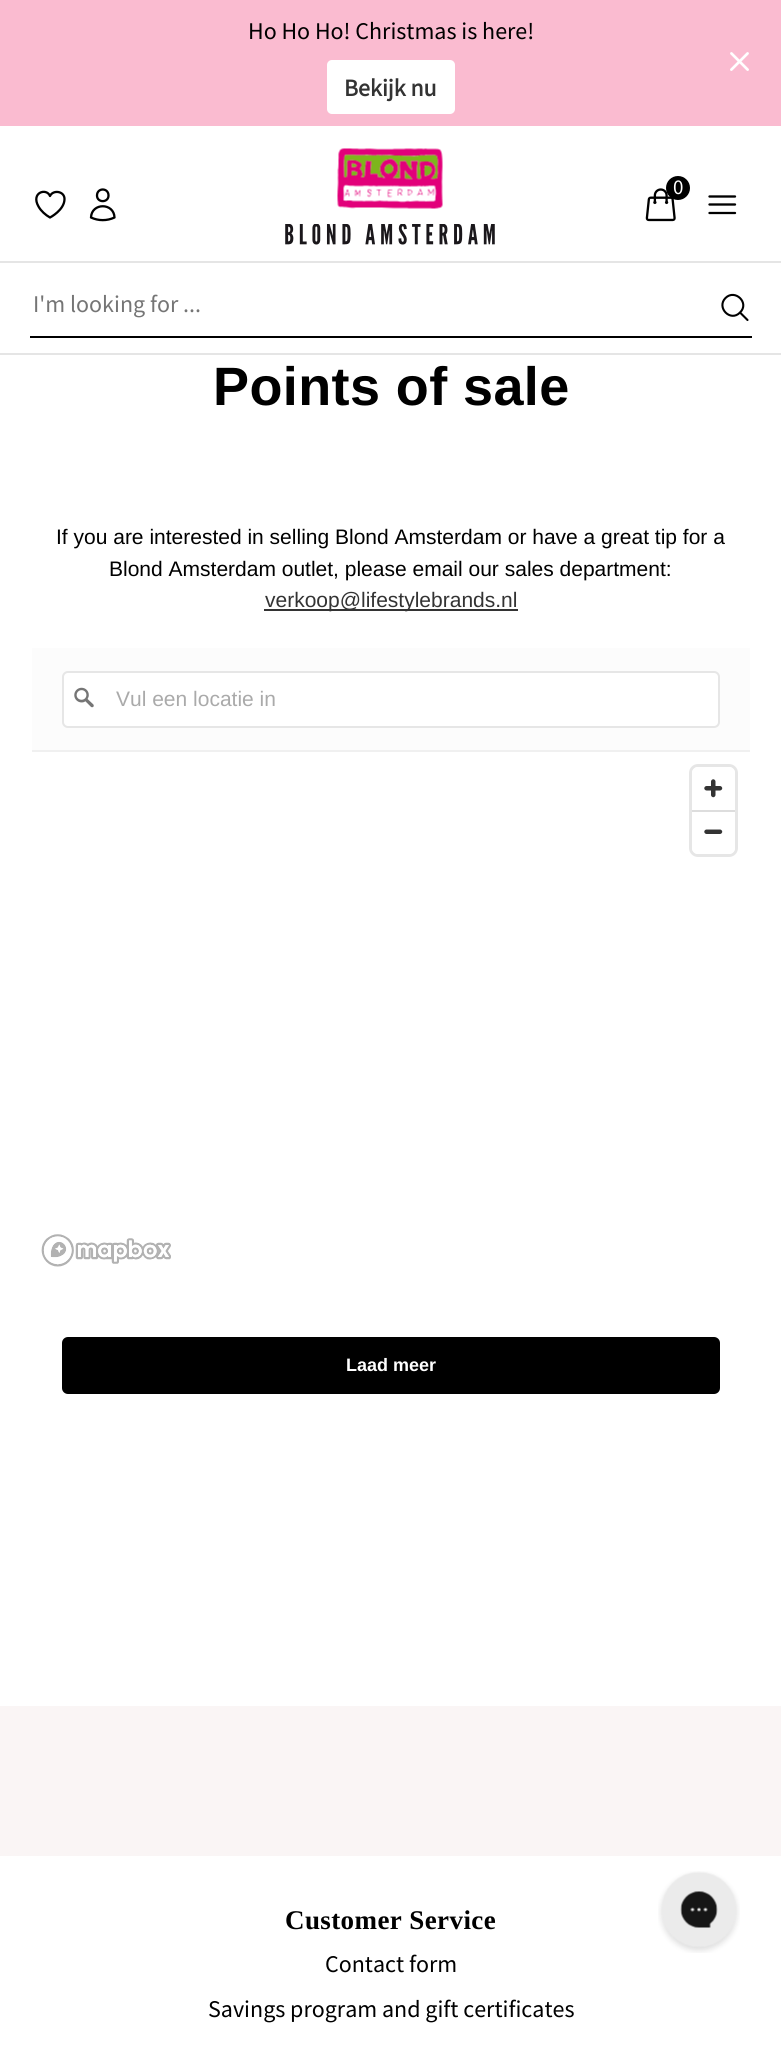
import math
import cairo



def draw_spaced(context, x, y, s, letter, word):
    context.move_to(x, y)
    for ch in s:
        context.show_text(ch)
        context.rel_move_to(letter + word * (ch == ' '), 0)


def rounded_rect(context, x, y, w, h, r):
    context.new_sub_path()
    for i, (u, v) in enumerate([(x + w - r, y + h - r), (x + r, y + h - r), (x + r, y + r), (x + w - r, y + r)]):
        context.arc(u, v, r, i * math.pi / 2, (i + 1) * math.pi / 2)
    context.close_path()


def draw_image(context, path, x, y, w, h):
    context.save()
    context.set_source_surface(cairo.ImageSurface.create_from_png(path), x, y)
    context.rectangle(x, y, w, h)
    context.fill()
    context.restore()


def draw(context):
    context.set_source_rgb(1, 1, 1)
    context.paint()
    context.set_source_rgb(250 / 255, 187 / 255, 208 / 255)
    context.rectangle(0, 0, 781, 126)
    context.fill()
    draw_image(context, "images/1.png", 730, 52, 19, 19)
    context.set_source_rgb(1, 1, 1)
    rounded_rect(context, 327, 60, 128, 54, 5)
    context.fill()
    draw_image(context, "images/2.png", 337, 148, 106, 61)
    draw_image(context, "images/3.png", 285, 224, 210, 21)
    draw_image(context, "images/4.png", 645, 188, 31, 34)
    context.set_source_rgb(0, 0, 0)
    context.arc(678, 188, 12, 0, 2 * math.pi)
    context.fill()
    context.new_path()
    context.move_to(709.5, 196.5)
    context.line_to(735, 196.5)
    context.move_to(709.5, 204.5)
    context.line_to(735, 204.5)
    context.move_to(709.5, 213)
    context.line_to(735, 213)
    context.set_line_width(2.3)
    context.set_line_cap(cairo.LineCap.ROUND)
    context.set_line_join(cairo.LineJoin.ROUND)
    context.stroke()
    context.new_path()
    context.move_to(64.5, 199)
    context.curve_to(64.5, 191, 53, 189.5, 50, 196)
    context.curve_to(46.5, 187.5, 30.5, 192.5, 38.5, 206.5)
    context.curve_to(41, 211, 45.5, 215, 50, 217.5)
    context.curve_to(50, 217.5, 64.5, 210, 64.5, 199)
    context.close_path()
    context.stroke()
    context.new_path()
    context.move_to(108.5, 195.5)
    context.curve_to(108.5, 203, 97, 203, 97, 195.5)
    context.curve_to(97, 187.5, 108.5, 187.5, 108.5, 195.5)
    context.close_path()
    context.move_to(91, 217.5)
    context.curve_to(91.5, 202.5, 114, 202.5, 114.5, 217.5)
    context.curve_to(107, 221, 98.5, 221, 91, 217.5)
    context.close_path()
    context.stroke()
    context.set_source_rgb(229 / 255, 229 / 255, 229 / 255)
    context.rectangle(0, 261, 781, 2)
    context.fill()
    context.rectangle(0, 353, 781, 2)
    context.fill()
    context.set_source_rgb(0, 0, 0)
    context.rectangle(30, 336, 722, 2)
    context.fill()
    context.new_path()
    context.move_to(747.5, 320)
    context.line_to(740, 312.5)
    context.move_to(740, 312.5)
    context.curve_to(750, 303, 735, 288.5, 725.5, 298)
    context.curve_to(716, 307.5, 730.5, 322.5, 740, 312.5)
    context.close_path()
    context.set_line_width(2.1)
    context.stroke()
    context.set_source_rgb(51 / 255, 51 / 255, 51 / 255)
    context.rectangle(264, 609, 254, 2)
    context.fill()
    context.set_source_rgb(252 / 255, 252 / 255, 252 / 255)
    context.rectangle(32, 648, 718, 102)
    context.fill()
    context.set_source_rgb(240 / 255, 240 / 255, 240 / 255)
    context.rectangle(32, 750, 718, 2)
    context.fill()
    context.set_source_rgb(1, 1, 1)
    rounded_rect(context, 62, 671, 658, 57, 6)
    context.fill()
    rounded_rect(context, 63, 672, 656, 55, 5)
    context.set_source_rgba(0, 0, 0, 0.1)
    context.set_line_width(2)
    context.set_line_cap(cairo.LineCap.BUTT)
    context.set_line_join(cairo.LineJoin.MITER)
    context.stroke()
    draw_image(context, "images/5.png", 74, 687, 20, 21)
    rounded_rect(context, 690.5, 765.5, 46, 90, 7.5)
    context.set_source_rgb(230 / 255, 230 / 255, 230 / 255)
    context.set_line_width(3)
    context.stroke()
    context.set_source_rgb(1, 1, 1)
    rounded_rect(context, 692, 767, 43, 87, 6)
    context.fill()
    draw_image(context, "images/6.png", 704, 779, 19, 19)
    context.set_source_rgb(221 / 255, 221 / 255, 221 / 255)
    context.rectangle(692, 810, 43, 2)
    context.fill()
    draw_image(context, "images/7.png", 704, 829, 19, 5)
    draw_image(context, "images/8.png", 41, 1234, 130, 33)
    context.set_source_rgb(0, 0, 0)
    rounded_rect(context, 62, 1337, 658, 57, 6)
    context.fill()
    context.set_source_rgb(250 / 255, 245 / 255, 245 / 255)
    context.rectangle(0, 1706, 781, 150)
    context.fill()
    draw_image(context, "images/9.png", 658, 1871, 82, 82)
    context.select_font_face("Source Sans Pro")
    context.set_font_size(24)
    context.set_source_rgb(0, 0, 0)
    context.move_to(248, 39)
    context.show_text("Ho Ho Ho! Christmas is here!")
    context.select_font_face("Source Sans Pro", cairo.FontSlant.NORMAL, cairo.FontWeight.BOLD)
    context.set_source_rgb(51 / 255, 51 / 255, 51 / 255)
    context.move_to(344, 96)
    context.show_text("Bekijk nu")
    context.select_font_face("Source Sans Pro")
    context.set_font_size(21)
    context.set_source_rgb(1, 1, 1)
    context.move_to(673, 194)
    context.show_text("0")
    context.set_font_size(24)
    context.set_source_rgb(117 / 255, 117 / 255, 117 / 255)
    context.move_to(33, 312)
    context.show_text("I'm looking for ...")
    context.select_font_face("Liberation Sans", cairo.FontSlant.NORMAL, cairo.FontWeight.BOLD)
    context.set_font_size(54)
    context.set_source_rgb(0, 0, 0)
    draw_spaced(context, 213, 405, "Points of sale", 0.4, 0)
    context.select_font_face("Liberation Sans")
    context.set_font_size(21)
    context.move_to(56, 544)
    context.show_text("If you are interested in selling Blond Amsterdam or have a great tip for a")
    context.move_to(109, 576)
    context.show_text("Blond Amsterdam outlet, please email our sales department:")
    context.set_source_rgb(51 / 255, 51 / 255, 51 / 255)
    context.move_to(265, 607)
    context.show_text("verkoop@lifestylebrands.nl")
    context.set_source_rgb(170 / 255, 170 / 255, 170 / 255)
    context.move_to(116, 706)
    context.show_text("Vul een locatie in")
    context.select_font_face("Liberation Sans", cairo.FontSlant.NORMAL, cairo.FontWeight.BOLD)
    context.set_font_size(18)
    context.set_source_rgb(1, 1, 1)
    context.move_to(346, 1371)
    context.show_text("Laad meer")
    context.select_font_face("Liberation Serif", cairo.FontSlant.NORMAL, cairo.FontWeight.BOLD)
    context.set_font_size(27)
    context.set_source_rgb(0, 0, 0)
    draw_spaced(context, 285, 1929, "Customer Service", 0.4, 0)
    context.select_font_face("Source Sans Pro")
    context.set_font_size(24)
    context.move_to(325, 1972)
    context.show_text("Contact form")
    context.move_to(208, 2017)
    context.show_text("Savings program and gift certificates")


surface = cairo.ImageSurface(cairo.Format.RGB24, 781, 2047)
context = cairo.Context(surface)
options = cairo.FontOptions()
options.set_hint_metrics(cairo.HintMetrics.OFF)
options.set_hint_style(cairo.HintStyle.NONE)
context.set_font_options(options)
context.set_miter_limit(4)
draw(context)
surface.write_to_png("out.png")
